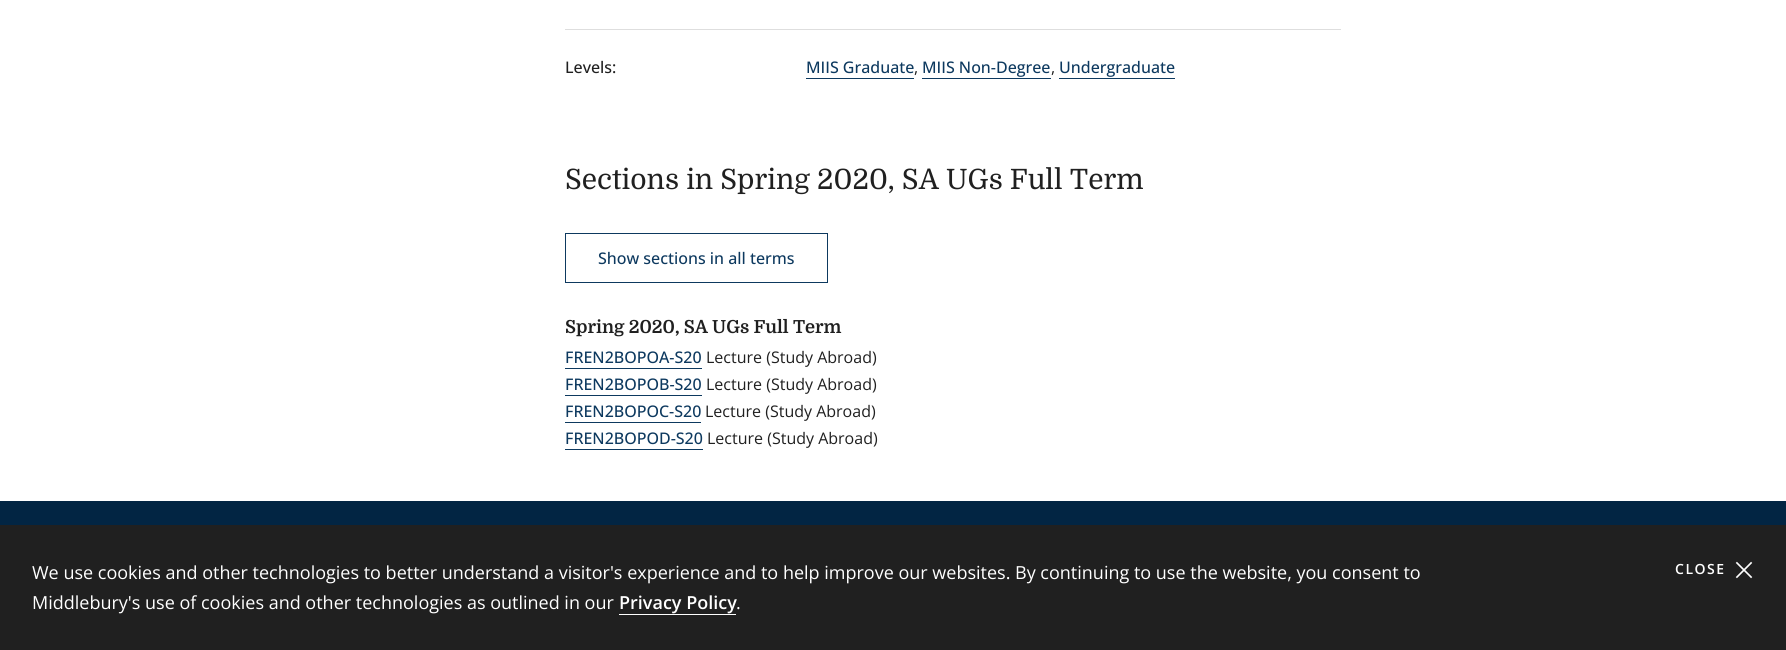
import math
import cairo



def draw_spaced(context, x, y, s, letter, word):
    context.move_to(x, y)
    for ch in s:
        context.show_text(ch)
        context.rel_move_to(letter + word * (ch == ' '), 0)


def draw_image(context, path, x, y, w, h):
    context.save()
    context.set_source_surface(cairo.ImageSurface.create_from_png(path), x, y)
    context.rectangle(x, y, w, h)
    context.fill()
    context.restore()


def draw(context):
    context.set_source_rgb(1, 1, 1)
    context.paint()
    context.set_source_rgb(222 / 255, 222 / 255, 222 / 255)
    context.rectangle(565, 29, 776, 1)
    context.fill()
    context.set_source_rgb(13 / 255, 57 / 255, 95 / 255)
    context.rectangle(806, 78, 108, 1)
    context.fill()
    context.rectangle(922, 78, 129, 1)
    context.fill()
    context.rectangle(1059, 78, 116, 1)
    context.fill()
    context.rectangle(565.5, 233.5, 262, 49)
    context.set_line_width(1)
    context.stroke()
    context.rectangle(565, 368, 137, 1)
    context.fill()
    context.rectangle(565, 395, 137, 1)
    context.fill()
    context.rectangle(565, 422, 136, 1)
    context.fill()
    context.rectangle(565, 449, 138, 1)
    context.fill()
    context.set_source_rgb(2 / 255, 37 / 255, 67 / 255)
    context.rectangle(0, 501, 1786, 24)
    context.fill()
    context.set_source_rgb(32 / 255, 32 / 255, 32 / 255)
    context.rectangle(0, 525, 1786, 125)
    context.fill()
    context.set_source_rgb(1, 1, 1)
    context.rectangle(619, 614, 117, 1)
    context.fill()
    draw_image(context, "images/1.png", 1735, 561, 18, 18)
    context.select_font_face("Open Sans Medium")
    context.set_font_size(16)
    context.set_source_rgb(32 / 255, 32 / 255, 32 / 255)
    context.move_to(565, 73)
    context.show_text("Levels:")
    context.set_source_rgb(13 / 255, 57 / 255, 95 / 255)
    context.move_to(806, 73)
    context.show_text("MIIS Graduate")
    context.select_font_face("Open Sans")
    context.set_source_rgb(32 / 255, 32 / 255, 32 / 255)
    context.move_to(914, 73)
    context.show_text(",")
    context.select_font_face("Open Sans Medium")
    context.set_source_rgb(13 / 255, 57 / 255, 95 / 255)
    context.move_to(922, 73)
    context.show_text("MIIS Non-Degree")
    context.select_font_face("Open Sans")
    context.set_source_rgb(32 / 255, 32 / 255, 32 / 255)
    context.move_to(1051, 73)
    context.show_text(",")
    context.select_font_face("Open Sans Medium")
    context.set_source_rgb(13 / 255, 57 / 255, 95 / 255)
    context.move_to(1059, 73)
    context.show_text("Undergraduate")
    context.select_font_face("Domine")
    context.set_font_size(28)
    context.set_source_rgb(32 / 255, 32 / 255, 32 / 255)
    context.move_to(565, 189)
    context.show_text("Sections in Spring 2020, SA UGs Full Term")
    context.select_font_face("Open Sans Medium")
    context.set_font_size(16)
    context.set_source_rgb(13 / 255, 57 / 255, 95 / 255)
    context.move_to(598, 264)
    context.show_text("Show sections in all terms")
    context.select_font_face("Domine", cairo.FontSlant.NORMAL, cairo.FontWeight.BOLD)
    context.set_font_size(18)
    context.set_source_rgb(32 / 255, 32 / 255, 32 / 255)
    context.move_to(565, 333)
    context.show_text("Spring 2020, SA UGs Full Term")
    context.select_font_face("Open Sans Medium")
    context.set_font_size(16)
    context.set_source_rgb(13 / 255, 57 / 255, 95 / 255)
    context.move_to(565, 363)
    context.show_text("FREN2BOPOA-S20")
    context.select_font_face("Open Sans")
    context.set_source_rgb(32 / 255, 32 / 255, 32 / 255)
    context.move_to(706, 363)
    context.show_text("Lecture (Study Abroad)")
    context.select_font_face("Open Sans Medium")
    context.set_source_rgb(13 / 255, 57 / 255, 95 / 255)
    context.move_to(565, 390)
    context.show_text("FREN2BOPOB-S20")
    context.select_font_face("Open Sans")
    context.set_source_rgb(32 / 255, 32 / 255, 32 / 255)
    context.move_to(706, 390)
    context.show_text("Lecture (Study Abroad)")
    context.select_font_face("Open Sans Medium")
    context.set_source_rgb(13 / 255, 57 / 255, 95 / 255)
    context.move_to(565, 417)
    context.show_text("FREN2BOPOC-S20")
    context.select_font_face("Open Sans")
    context.set_source_rgb(32 / 255, 32 / 255, 32 / 255)
    context.move_to(705, 417)
    context.show_text("Lecture (Study Abroad)")
    context.select_font_face("Open Sans Medium")
    context.set_source_rgb(13 / 255, 57 / 255, 95 / 255)
    context.move_to(565, 444)
    context.show_text("FREN2BOPOD-S20")
    context.select_font_face("Open Sans")
    context.set_source_rgb(32 / 255, 32 / 255, 32 / 255)
    context.move_to(707, 444)
    context.show_text("Lecture (Study Abroad)")
    context.set_font_size(18)
    context.set_source_rgb(1, 1, 1)
    context.move_to(32, 579)
    context.show_text("We use cookies and other technologies to better understand a visitor's experience and to help improve our websites. By continuing to use the website, you consent to")
    context.move_to(32, 609)
    context.show_text("Middlebury's use of cookies and other technologies as outlined in our")
    context.select_font_face("Open Sans SemiBold")
    context.move_to(619, 609)
    context.show_text("Privacy Policy")
    context.select_font_face("Open Sans")
    context.move_to(736, 609)
    context.show_text(".")
    context.select_font_face("Open Sans SemiBold")
    context.set_font_size(14)
    draw_spaced(context, 1675, 574, "CLOSE", 1.5, 0)


surface = cairo.ImageSurface(cairo.Format.RGB24, 1786, 650)
context = cairo.Context(surface)
options = cairo.FontOptions()
options.set_hint_metrics(cairo.HintMetrics.OFF)
options.set_hint_style(cairo.HintStyle.NONE)
context.set_font_options(options)
context.set_miter_limit(4)
draw(context)
surface.write_to_png("out.png")
